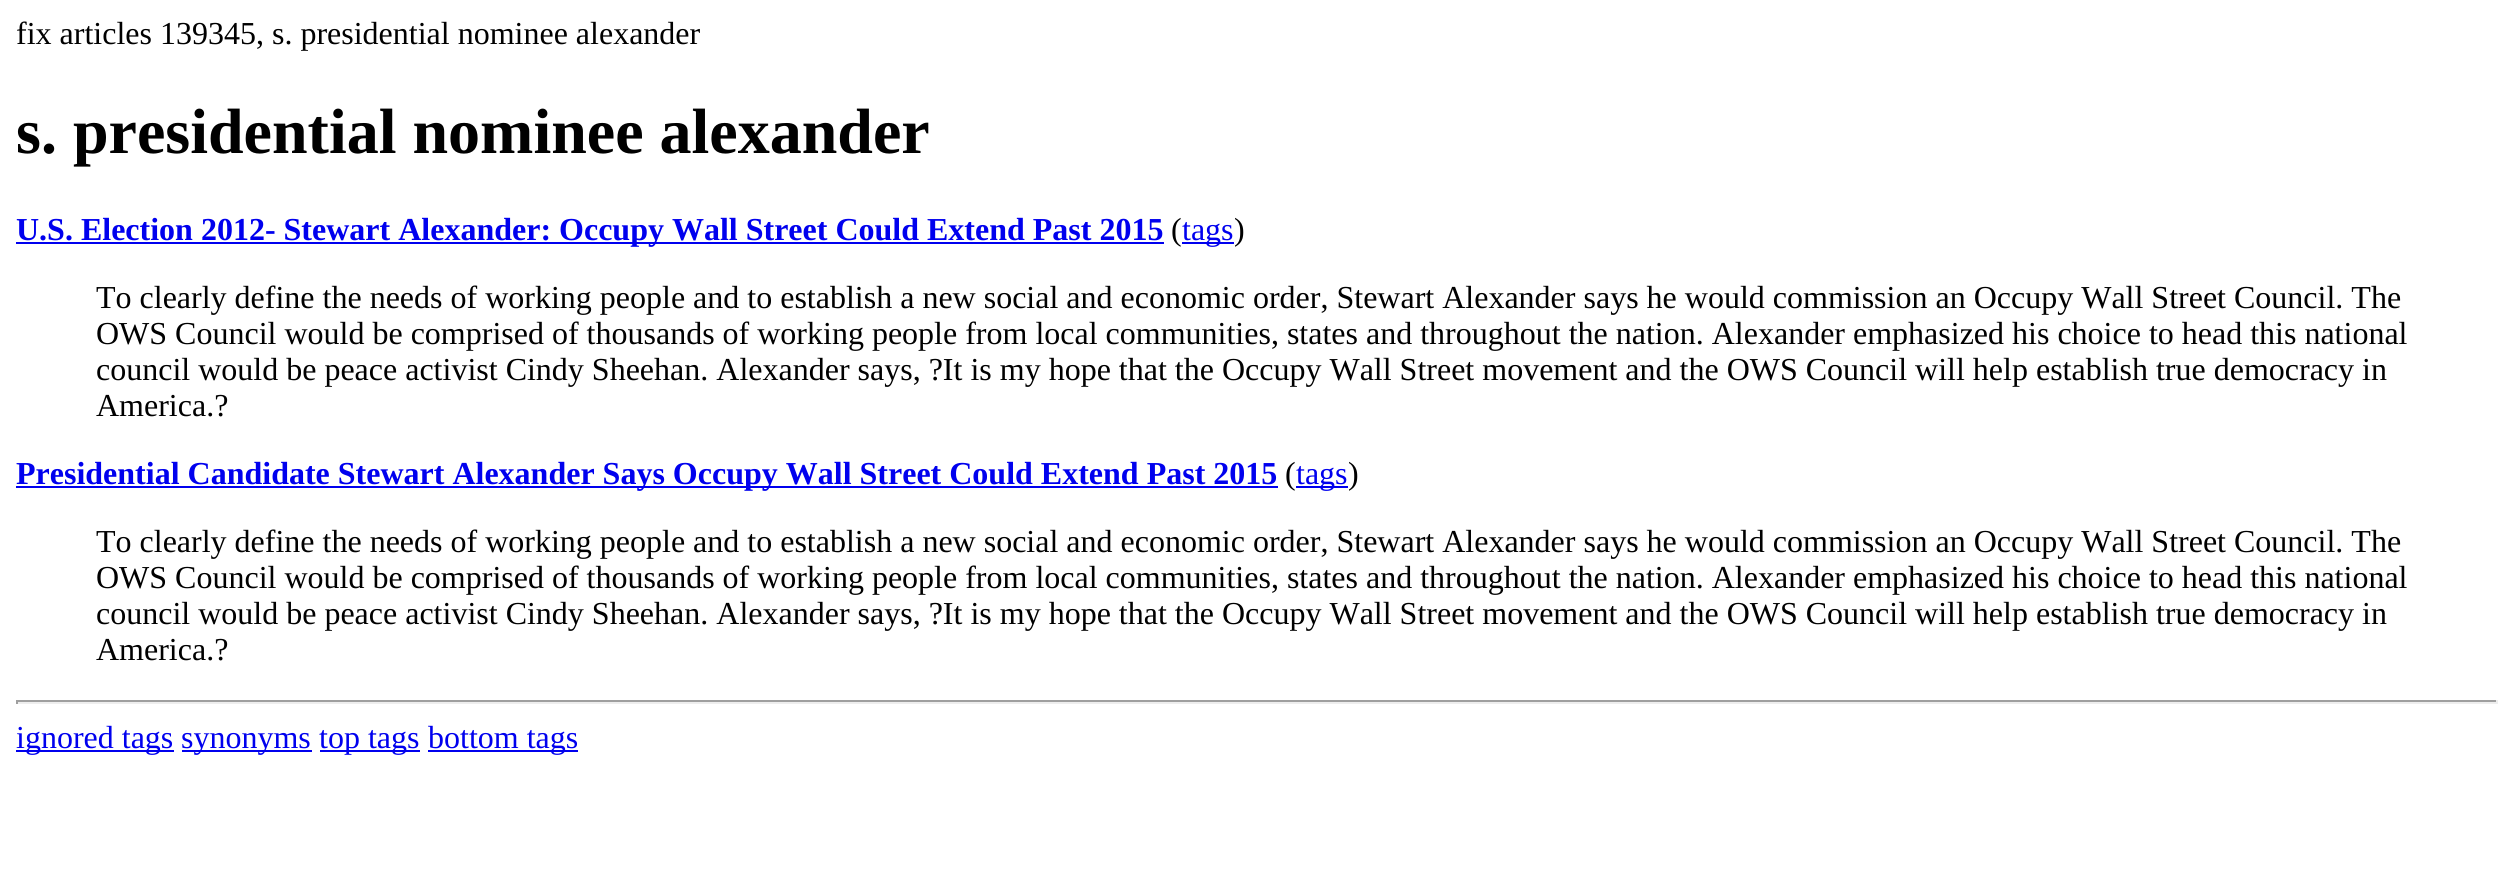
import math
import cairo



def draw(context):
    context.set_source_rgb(1, 1, 1)
    context.paint()
    context.set_source_rgb(0, 0, 238 / 255)
    context.rectangle(16, 242, 1148, 2)
    context.fill()
    context.rectangle(1182, 242, 52, 2)
    context.fill()
    context.rectangle(16, 486, 1262, 2)
    context.fill()
    context.rectangle(1296, 486, 52, 2)
    context.fill()
    context.set_source_rgb(159 / 255, 159 / 255, 159 / 255)
    context.rectangle(16, 700, 2482, 2)
    context.fill()
    context.set_source_rgb(238 / 255, 238 / 255, 238 / 255)
    context.rectangle(2496, 700, 2, 4)
    context.fill()
    context.rectangle(16, 702, 2482, 2)
    context.fill()
    context.set_source_rgb(159 / 255, 159 / 255, 159 / 255)
    context.rectangle(16, 700, 2, 4)
    context.fill()
    context.set_source_rgb(0, 0, 238 / 255)
    context.rectangle(16, 750, 158, 2)
    context.fill()
    context.rectangle(182, 750, 130, 2)
    context.fill()
    context.rectangle(320, 750, 100, 2)
    context.fill()
    context.rectangle(428, 750, 150, 2)
    context.fill()
    context.select_font_face("Liberation Serif")
    context.set_font_size(32)
    context.set_source_rgb(0, 0, 0)
    context.move_to(16, 44)
    context.show_text("fix articles 139345, s. presidential nominee alexander")
    context.select_font_face("Liberation Serif", cairo.FontSlant.NORMAL, cairo.FontWeight.BOLD)
    context.set_font_size(64)
    context.move_to(16, 153)
    context.show_text("s. presidential nominee alexander")
    context.set_font_size(32)
    context.set_source_rgb(0, 0, 238 / 255)
    context.move_to(16, 240)
    context.show_text("U.S. Election 2012- Stewart Alexander: Occupy Wall Street Could Extend Past 2015")
    context.select_font_face("Liberation Serif")
    context.set_source_rgb(0, 0, 0)
    context.move_to(1171, 240)
    context.show_text("(")
    context.set_source_rgb(0, 0, 238 / 255)
    context.move_to(1182, 240)
    context.show_text("tags")
    context.set_source_rgb(0, 0, 0)
    context.move_to(1234, 240)
    context.show_text(")")
    context.move_to(96, 308)
    context.show_text("To clearly define the needs of working people and to establish a new social and economic order, Stewart Alexander says he would commission an Occupy Wall Street Council. The")
    context.move_to(96, 344)
    context.show_text("OWS Council would be comprised of thousands of working people from local communities, states and throughout the nation. Alexander emphasized his choice to head this national")
    context.move_to(96, 380)
    context.show_text("council would be peace activist Cindy Sheehan. Alexander says, ?It is my hope that the Occupy Wall Street movement and the OWS Council will help establish true democracy in")
    context.move_to(96, 416)
    context.show_text("America.?")
    context.select_font_face("Liberation Serif", cairo.FontSlant.NORMAL, cairo.FontWeight.BOLD)
    context.set_source_rgb(0, 0, 238 / 255)
    context.move_to(16, 484)
    context.show_text("Presidential Candidate Stewart Alexander Says Occupy Wall Street Could Extend Past 2015")
    context.select_font_face("Liberation Serif")
    context.set_source_rgb(0, 0, 0)
    context.move_to(1285, 484)
    context.show_text("(")
    context.set_source_rgb(0, 0, 238 / 255)
    context.move_to(1296, 484)
    context.show_text("tags")
    context.set_source_rgb(0, 0, 0)
    context.move_to(1348, 484)
    context.show_text(")")
    context.move_to(96, 552)
    context.show_text("To clearly define the needs of working people and to establish a new social and economic order, Stewart Alexander says he would commission an Occupy Wall Street Council. The")
    context.move_to(96, 588)
    context.show_text("OWS Council would be comprised of thousands of working people from local communities, states and throughout the nation. Alexander emphasized his choice to head this national")
    context.move_to(96, 624)
    context.show_text("council would be peace activist Cindy Sheehan. Alexander says, ?It is my hope that the Occupy Wall Street movement and the OWS Council will help establish true democracy in")
    context.move_to(96, 660)
    context.show_text("America.?")
    context.set_source_rgb(0, 0, 238 / 255)
    context.move_to(16, 748)
    context.show_text("ignored tags")
    context.move_to(181, 748)
    context.show_text("synonyms")
    context.move_to(319, 748)
    context.show_text("top tags")
    context.move_to(428, 748)
    context.show_text("bottom tags")


surface = cairo.ImageSurface(cairo.Format.RGB24, 2514, 872)
context = cairo.Context(surface)
options = cairo.FontOptions()
options.set_hint_metrics(cairo.HintMetrics.OFF)
options.set_hint_style(cairo.HintStyle.NONE)
context.set_font_options(options)
context.set_miter_limit(4)
draw(context)
surface.write_to_png("out.png")
